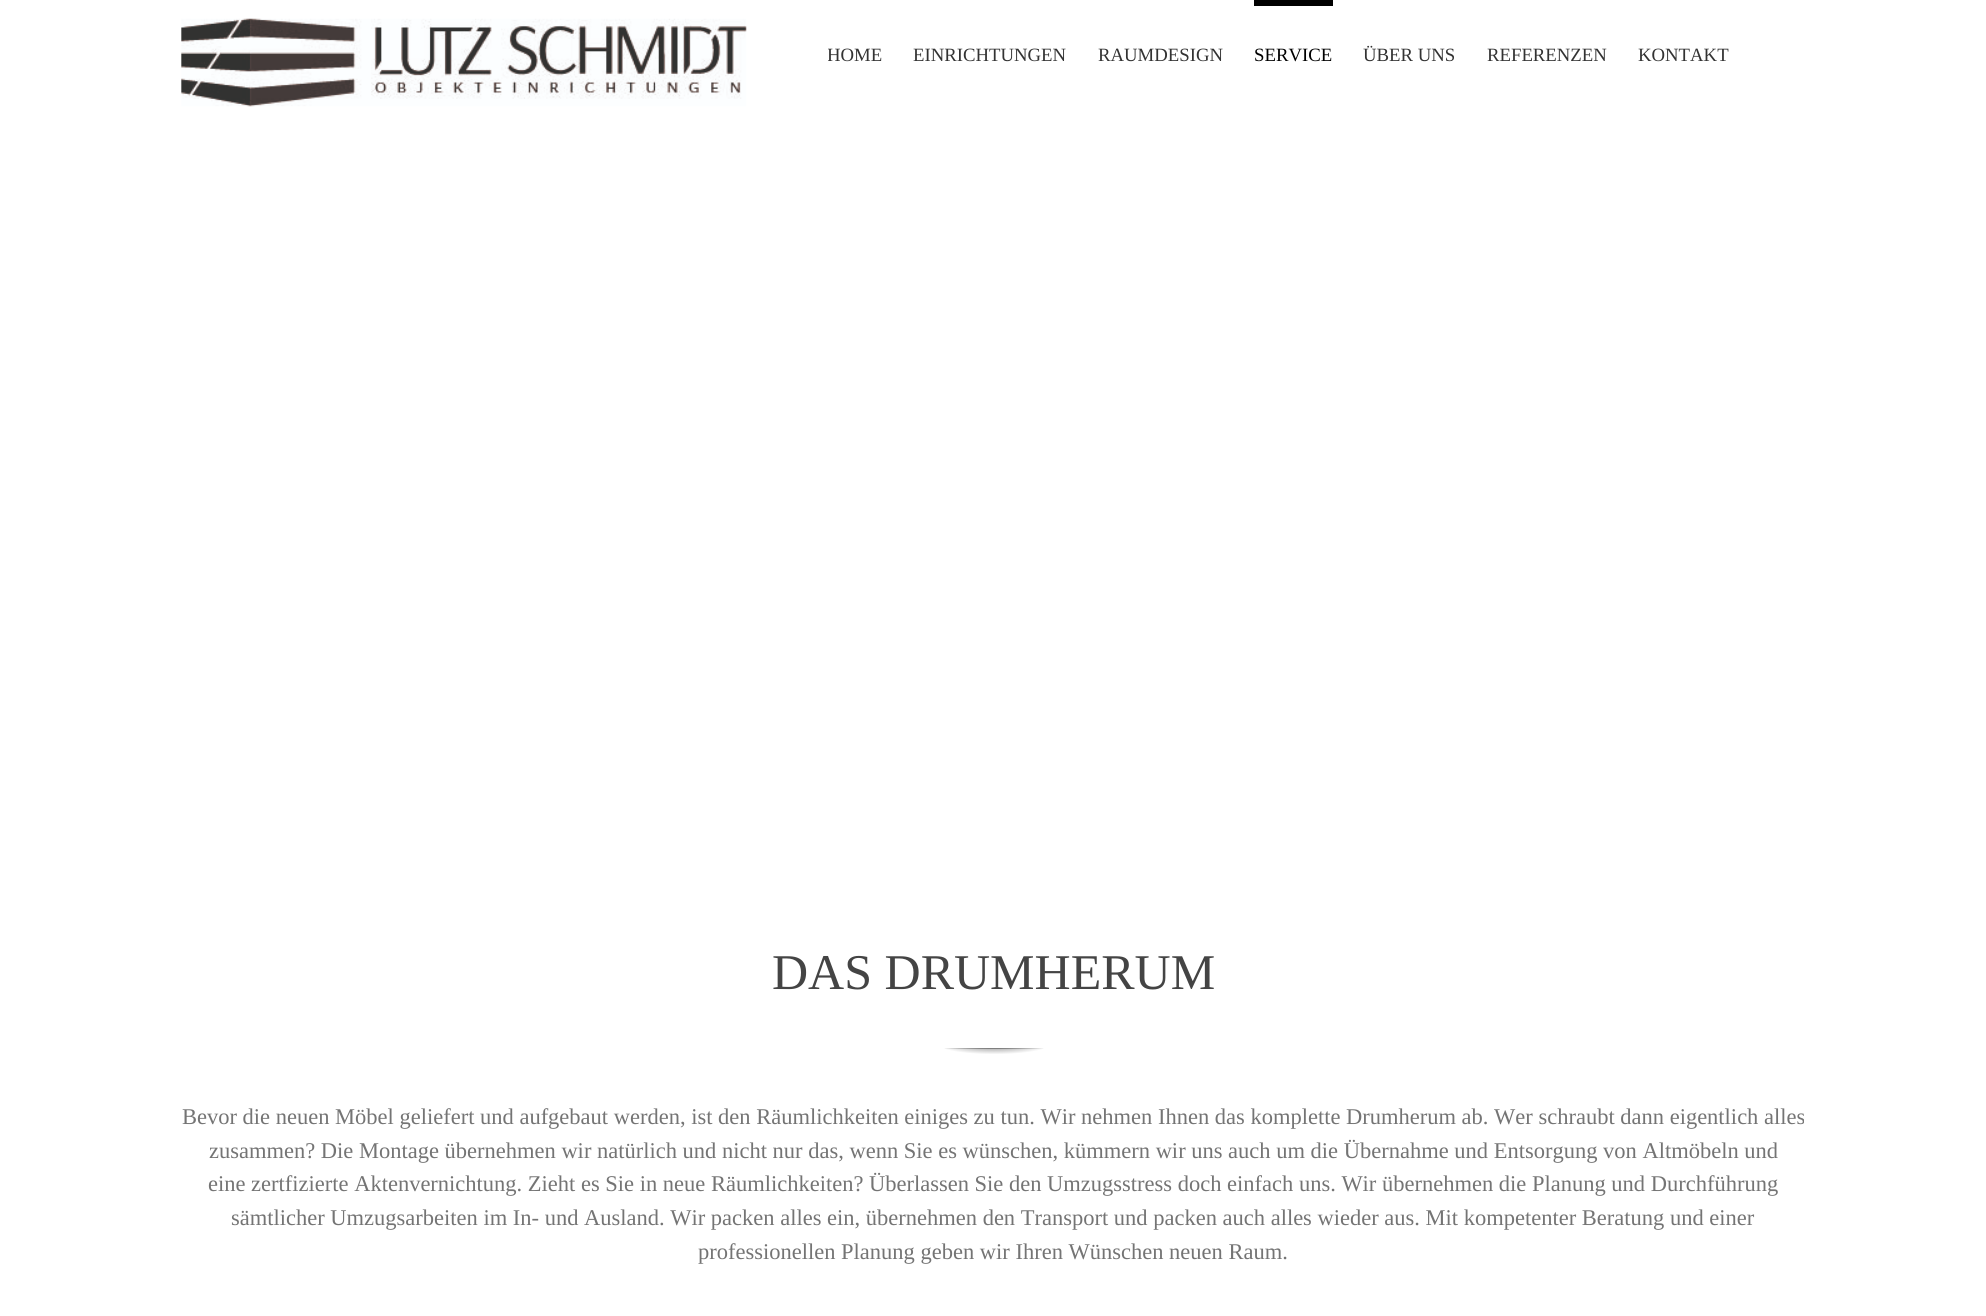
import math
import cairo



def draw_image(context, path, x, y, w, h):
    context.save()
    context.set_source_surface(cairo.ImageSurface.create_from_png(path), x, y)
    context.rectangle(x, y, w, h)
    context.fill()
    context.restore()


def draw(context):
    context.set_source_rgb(1, 1, 1)
    context.paint()
    draw_image(context, "images/1.png", 181, 18, 566, 89)
    context.set_source_rgb(0, 0, 0)
    context.rectangle(1254, 0, 79, 6)
    context.fill()
    gradient = cairo.RadialGradient(0, 0, 0, 0, 0, 1)
    gradient.set_matrix(cairo.Matrix(1 / 88, 0, 0, 1 / 2.7, -1 * 994 / 88, -1 * 1047 / 2.7))
    gradient.add_color_stop_rgba(0, 0, 0, 0, 1)
    gradient.add_color_stop_rgba(0.8, 1, 1, 1, 1)
    context.set_source(gradient)
    context.rectangle(944, 1048, 100, 1)
    context.fill()
    gradient = cairo.RadialGradient(0, 0, 0, 0, 0, 1)
    gradient.set_matrix(cairo.Matrix(1 / 88, 0, 0, 1 / 16, -1 * 994 / 88, -1 * 1044 / 16))
    gradient.add_color_stop_rgba(0, 0, 0, 0, 0.5)
    gradient.add_color_stop_rgba(0.65, 0, 0, 0, 0)
    context.set_source(gradient)
    context.rectangle(945, 1048, 98, 6)
    context.fill()
    context.save()
    context.rectangle(828, 0, 978, 105)
    context.clip()
    context.select_font_face("Liberation Serif")
    context.set_font_size(18.75)
    context.set_source_rgb(51 / 255, 51 / 255, 51 / 255)
    context.move_to(827, 61)
    context.show_text("HOME")
    context.restore()
    context.select_font_face("Liberation Serif")
    context.set_font_size(18.75)
    context.set_source_rgb(51 / 255, 51 / 255, 51 / 255)
    context.move_to(913, 61)
    context.show_text("EINRICHTUNGEN")
    context.move_to(1098, 61)
    context.show_text("RAUMDESIGN")
    context.set_source_rgb(0, 0, 0)
    context.move_to(1254, 61)
    context.show_text("SERVICE")
    context.set_source_rgb(51 / 255, 51 / 255, 51 / 255)
    context.move_to(1363, 61)
    context.show_text("ÜBER UNS")
    context.move_to(1487, 61)
    context.show_text("REFERENZEN")
    context.move_to(1638, 61)
    context.show_text("KONTAKT")
    context.set_font_size(50)
    context.set_source_rgb(68 / 255, 68 / 255, 68 / 255)
    context.move_to(772, 989)
    context.show_text("DAS DRUMHERUM")
    context.set_font_size(22.5)
    context.set_source_rgb(116 / 255, 116 / 255, 116 / 255)
    context.move_to(182, 1124)
    context.show_text("Bevor die neuen Möbel geliefert und aufgebaut werden, ist den Räumlichkeiten einiges zu tun. Wir nehmen Ihnen das komplette Drumherum ab. Wer schraubt dann eigentlich alles")
    context.move_to(209, 1158)
    context.show_text("zusammen? Die Montage übernehmen wir natürlich und nicht nur das, wenn Sie es wünschen, kümmern wir uns auch um die Übernahme und Entsorgung von Altmöbeln und")
    context.move_to(208, 1191)
    context.show_text("eine zertfizierte Aktenvernichtung. Zieht es Sie in neue Räumlichkeiten? Überlassen Sie den Umzugsstress doch einfach uns. Wir übernehmen die Planung und Durchführung")
    context.move_to(231, 1225)
    context.show_text("sämtlicher Umzugsarbeiten im In- und Ausland. Wir packen alles ein, übernehmen den Transport und packen auch alles wieder aus. Mit kompetenter Beratung und einer")
    context.move_to(698, 1259)
    context.show_text("professionellen Planung geben wir Ihren Wünschen neuen Raum.")


surface = cairo.ImageSurface(cairo.Format.RGB24, 1986, 1316)
context = cairo.Context(surface)
options = cairo.FontOptions()
options.set_hint_metrics(cairo.HintMetrics.OFF)
options.set_hint_style(cairo.HintStyle.NONE)
context.set_font_options(options)
context.set_miter_limit(4)
draw(context)
surface.write_to_png("out.png")
